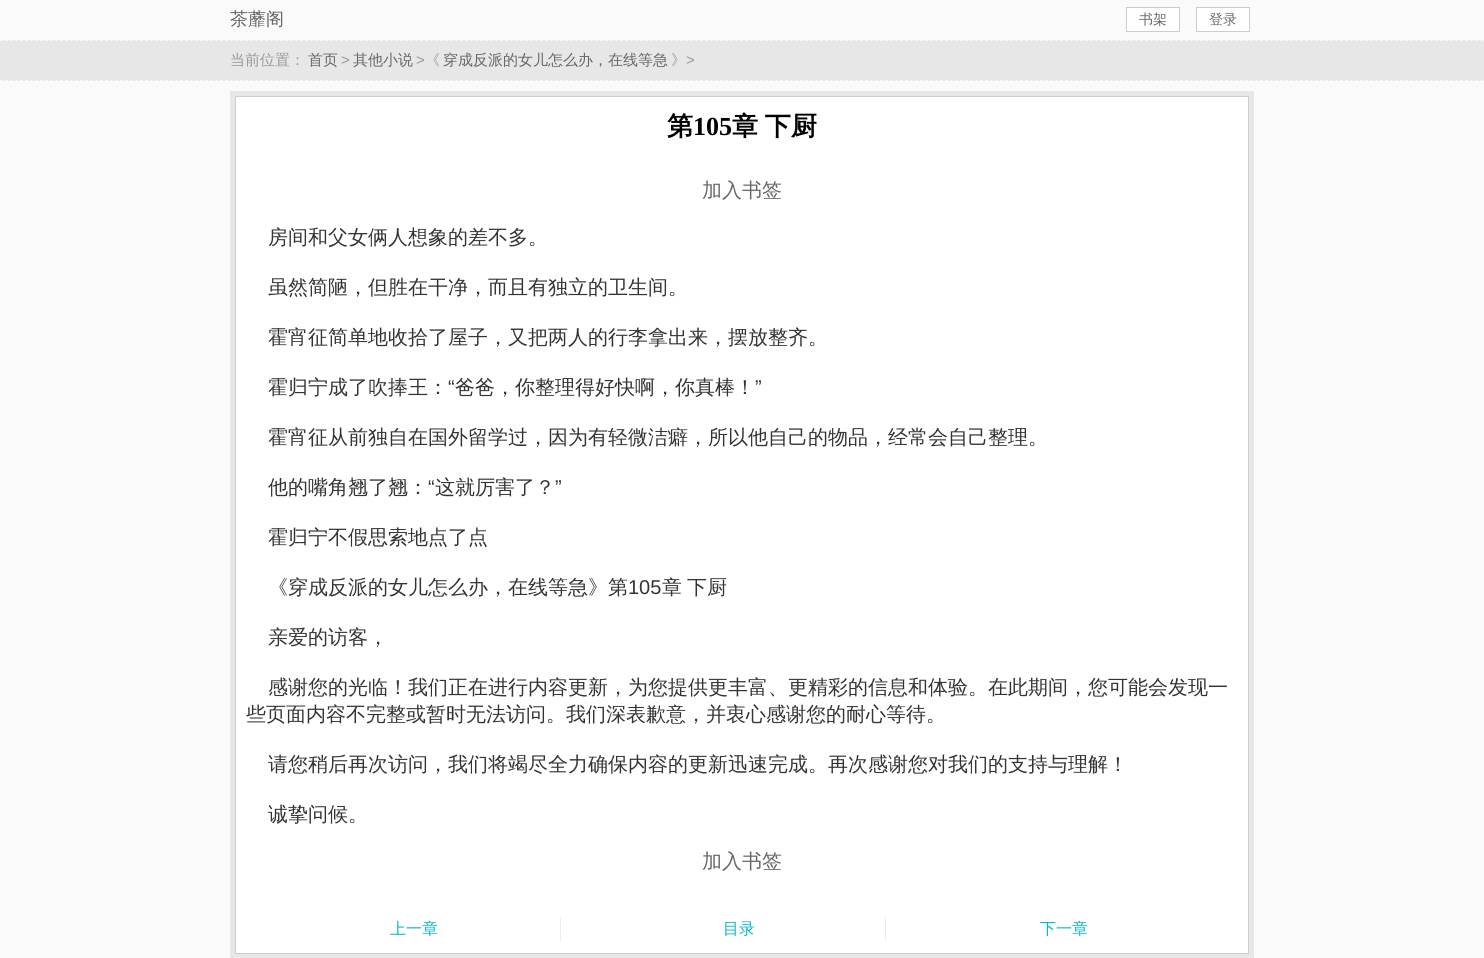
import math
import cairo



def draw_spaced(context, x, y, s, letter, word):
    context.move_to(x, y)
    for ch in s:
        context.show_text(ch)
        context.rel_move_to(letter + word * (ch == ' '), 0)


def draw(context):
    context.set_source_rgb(250 / 255, 250 / 255, 250 / 255)
    context.paint()
    context.set_source_rgb(1, 1, 1)
    context.rectangle(1126.5, 7.5, 53, 24)
    context.fill_preserve()
    context.set_source_rgb(204 / 255, 204 / 255, 204 / 255)
    context.set_line_width(1)
    context.stroke()
    context.set_source_rgb(1, 1, 1)
    context.rectangle(1196.5, 7.5, 53, 24)
    context.fill_preserve()
    context.set_source_rgb(204 / 255, 204 / 255, 204 / 255)
    context.stroke()
    context.set_source_rgb(231 / 255, 231 / 255, 231 / 255)
    context.rectangle(0, 40, 1484, 41)
    context.fill()
    context.new_path()
    context.move_to(0, 40.5)
    context.line_to(1484, 40.5)
    context.set_source_rgb(245 / 255, 245 / 255, 245 / 255)
    context.set_dash([3, 2])
    context.stroke()
    context.new_path()
    context.move_to(0, 80.5)
    context.line_to(1484, 80.5)
    context.stroke()
    context.set_source_rgb(231 / 255, 231 / 255, 231 / 255)
    context.rectangle(230, 91, 1024, 867)
    context.fill()
    context.set_source_rgb(1, 1, 1)
    context.rectangle(235.5, 96.5, 1013, 857)
    context.fill_preserve()
    context.set_source_rgb(204 / 255, 204 / 255, 204 / 255)
    context.set_dash([])
    context.stroke()
    context.set_source_rgb(236 / 255, 236 / 255, 236 / 255)
    context.rectangle(885, 917, 1, 24)
    context.fill()
    context.rectangle(560, 917, 1, 24)
    context.fill()
    context.select_font_face("WenQuanYi Zen Hei Medium")
    context.set_font_size(18)
    context.set_source_rgb(102 / 255, 102 / 255, 102 / 255)
    context.move_to(230, 25)
    context.show_text("茶蘼阁")
    context.set_font_size(14)
    context.move_to(1139, 24)
    context.show_text("书架")
    context.move_to(1209, 24)
    context.show_text("登录")
    context.set_font_size(15)
    context.set_source_rgb(153 / 255, 153 / 255, 153 / 255)
    context.move_to(230, 65)
    context.show_text("当前位置：")
    context.set_source_rgb(102 / 255, 102 / 255, 102 / 255)
    context.move_to(308, 65)
    context.show_text("首页")
    context.select_font_face("Liberation Sans")
    context.set_source_rgb(153 / 255, 153 / 255, 153 / 255)
    context.move_to(341, 65)
    context.show_text(">")
    context.select_font_face("WenQuanYi Zen Hei Medium")
    context.set_source_rgb(102 / 255, 102 / 255, 102 / 255)
    context.move_to(353, 65)
    context.show_text("其他小说")
    context.select_font_face("Liberation Sans")
    context.set_source_rgb(153 / 255, 153 / 255, 153 / 255)
    context.move_to(416, 65)
    context.show_text(">")
    context.select_font_face("WenQuanYi Zen Hei Medium")
    context.move_to(425, 65)
    context.show_text("《")
    context.set_source_rgb(102 / 255, 102 / 255, 102 / 255)
    context.move_to(443, 65)
    context.show_text("穿成反派的女儿怎么办，在线等急")
    context.set_source_rgb(153 / 255, 153 / 255, 153 / 255)
    context.move_to(671, 65)
    context.show_text("》")
    context.select_font_face("Liberation Sans")
    context.move_to(686, 65)
    context.show_text(">")
    context.select_font_face("WenQuanYi Zen Hei", cairo.FontSlant.NORMAL, cairo.FontWeight.BOLD)
    context.set_font_size(26)
    context.set_source_rgb(0, 0, 0)
    context.move_to(667, 135)
    context.show_text("第")
    context.select_font_face("Liberation Serif", cairo.FontSlant.NORMAL, cairo.FontWeight.BOLD)
    context.move_to(693, 135)
    context.show_text("105")
    context.select_font_face("WenQuanYi Zen Hei", cairo.FontSlant.NORMAL, cairo.FontWeight.BOLD)
    draw_spaced(context, 732, 135, "章 下厨", 0, -1)
    context.select_font_face("WenQuanYi Zen Hei Medium")
    context.set_font_size(20)
    context.set_source_rgb(102 / 255, 102 / 255, 102 / 255)
    context.move_to(702, 197)
    context.show_text("加入书签")
    context.set_source_rgb(51 / 255, 51 / 255, 51 / 255)
    context.move_to(268, 244)
    context.show_text("房间和父女俩人想象的差不多。")
    context.move_to(268, 294)
    context.show_text("虽然简陋，但胜在干净，而且有独立的卫生间。")
    context.move_to(268, 344)
    context.show_text("霍宵征简单地收拾了屋子，又把两人的行李拿出来，摆放整齐。")
    context.move_to(268, 394)
    context.show_text("霍归宁成了吹捧王：")
    context.select_font_face("Liberation Sans")
    context.move_to(448, 394)
    context.show_text("“")
    context.select_font_face("WenQuanYi Zen Hei Medium")
    context.move_to(455, 394)
    context.show_text("爸爸，你整理得好快啊，你真棒！")
    context.select_font_face("Liberation Sans")
    context.move_to(755, 394)
    context.show_text("”")
    context.select_font_face("WenQuanYi Zen Hei Medium")
    context.move_to(268, 444)
    context.show_text("霍宵征从前独自在国外留学过，因为有轻微洁癖，所以他自己的物品，经常会自己整理。")
    context.move_to(268, 494)
    context.show_text("他的嘴角翘了翘：")
    context.select_font_face("Liberation Sans")
    context.move_to(428, 494)
    context.show_text("“")
    context.select_font_face("WenQuanYi Zen Hei Medium")
    context.move_to(435, 494)
    context.show_text("这就厉害了？")
    context.select_font_face("Liberation Sans")
    context.move_to(555, 494)
    context.show_text("”")
    context.select_font_face("WenQuanYi Zen Hei Medium")
    context.move_to(268, 544)
    context.show_text("霍归宁不假思索地点了点")
    context.move_to(268, 594)
    context.show_text("《穿成反派的女儿怎么办，在线等急》第")
    context.select_font_face("Liberation Sans")
    context.move_to(628, 594)
    context.show_text("105")
    context.select_font_face("WenQuanYi Zen Hei Medium")
    context.move_to(662, 594)
    context.show_text("章")
    context.move_to(687, 594)
    context.show_text("下厨")
    context.move_to(268, 644)
    context.show_text("亲爱的访客，")
    context.move_to(268, 694)
    context.show_text("感谢您的光临！我们正在进行内容更新，为您提供更丰富、更精彩的信息和体验。在此期间，您可能会发现一")
    context.move_to(246, 721)
    context.show_text("些页面内容不完整或暂时无法访问。我们深表歉意，并衷心感谢您的耐心等待。")
    context.move_to(268, 771)
    context.show_text("请您稍后再次访问，我们将竭尽全力确保内容的更新迅速完成。再次感谢您对我们的支持与理解！")
    context.move_to(268, 821)
    context.show_text("诚挚问候。")
    context.set_source_rgb(102 / 255, 102 / 255, 102 / 255)
    context.move_to(702, 868)
    context.show_text("加入书签")
    context.set_font_size(16)
    context.set_source_rgb(7 / 255, 185 / 255, 194 / 255)
    context.move_to(390, 934)
    context.show_text("上一章")
    context.move_to(723, 934)
    context.show_text("目录")
    context.move_to(1040, 934)
    context.show_text("下一章")


surface = cairo.ImageSurface(cairo.Format.RGB24, 1484, 958)
context = cairo.Context(surface)
options = cairo.FontOptions()
options.set_hint_metrics(cairo.HintMetrics.OFF)
options.set_hint_style(cairo.HintStyle.NONE)
context.set_font_options(options)
context.set_miter_limit(4)
draw(context)
surface.write_to_png("out.png")
